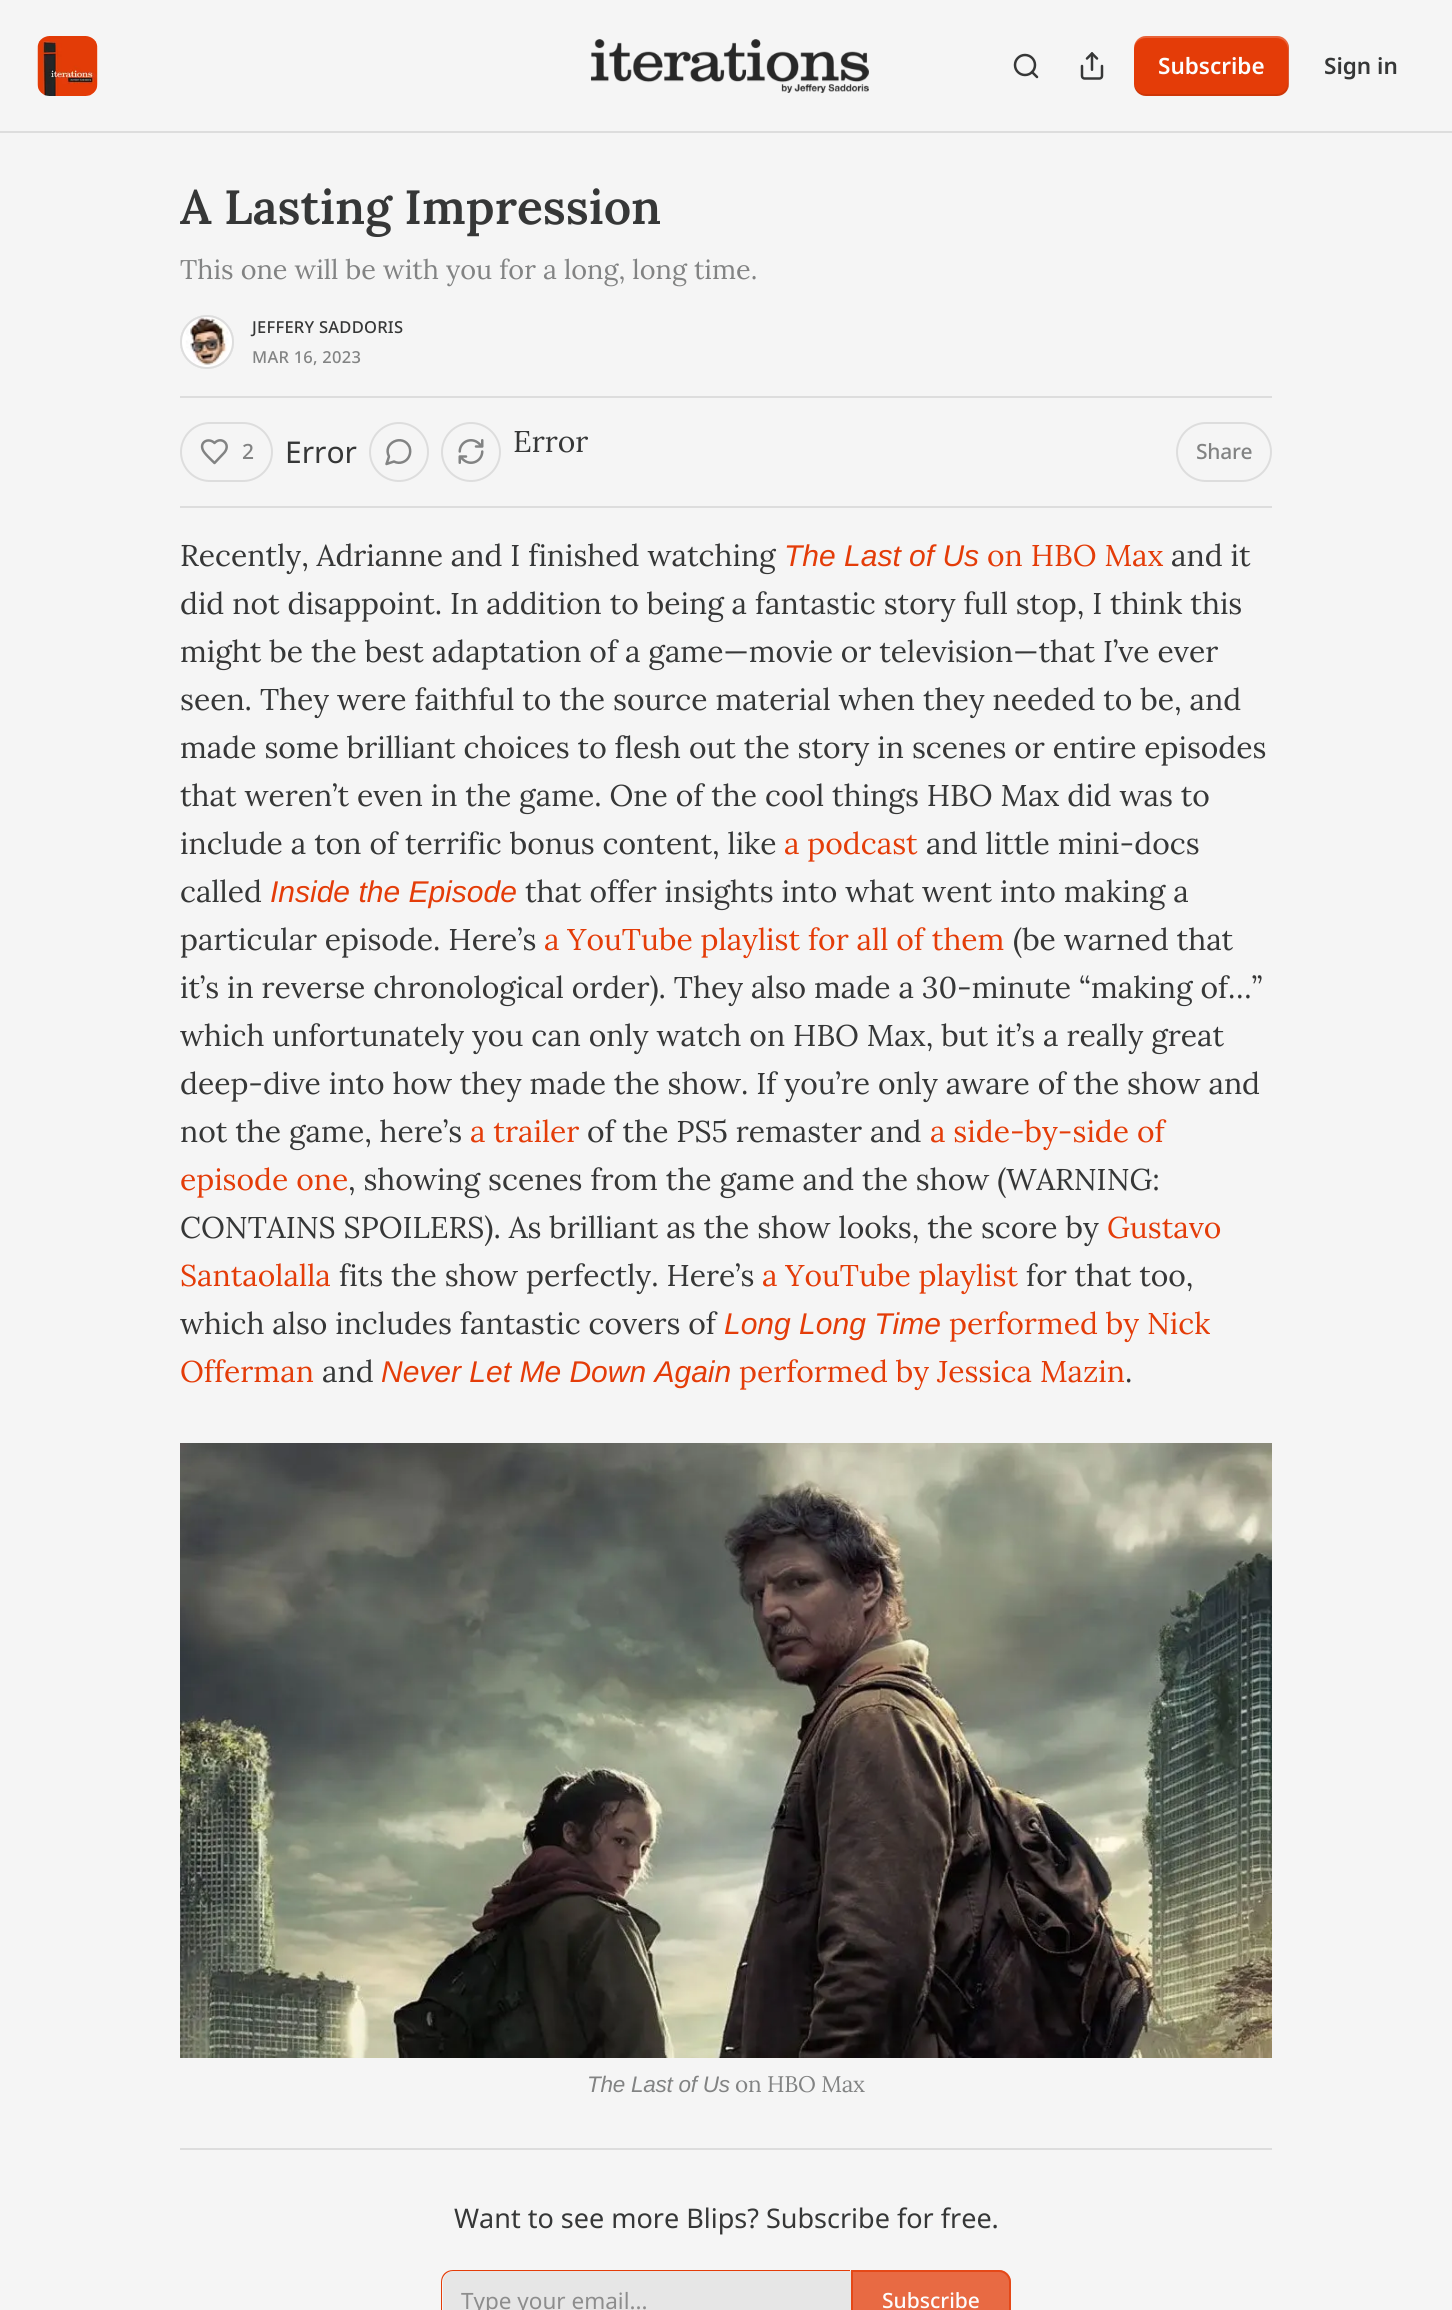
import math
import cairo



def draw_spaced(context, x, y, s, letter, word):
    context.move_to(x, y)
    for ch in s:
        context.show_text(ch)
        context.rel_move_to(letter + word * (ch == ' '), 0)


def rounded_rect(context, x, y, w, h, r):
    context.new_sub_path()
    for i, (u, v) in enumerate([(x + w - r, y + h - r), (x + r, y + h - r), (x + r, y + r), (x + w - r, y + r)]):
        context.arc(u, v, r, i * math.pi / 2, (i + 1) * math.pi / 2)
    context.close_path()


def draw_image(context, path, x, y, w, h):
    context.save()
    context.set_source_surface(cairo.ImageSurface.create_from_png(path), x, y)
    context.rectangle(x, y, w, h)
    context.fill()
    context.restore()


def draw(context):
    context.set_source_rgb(245 / 255, 245 / 255, 245 / 255)
    context.paint()
    context.set_source_rgb(221 / 255, 221 / 255, 221 / 255)
    context.rectangle(0, 131, 1452, 2)
    context.fill()
    context.set_source_rgb(1, 1, 1)
    rounded_rect(context, 38, 36, 60, 60, 12)
    context.fill()
    draw_image(context, "images/1.png", 37, 36, 61, 60)
    draw_image(context, "images/2.png", 591, 39, 278, 54)
    context.arc(1025, 65, 10, 0, 2 * math.pi)
    context.set_source_rgb(54 / 255, 55 / 255, 55 / 255)
    context.set_line_width(2.5)
    context.stroke()
    context.new_path()
    context.move_to(1037, 77)
    context.line_to(1032, 72)
    context.set_line_cap(cairo.LineCap.ROUND)
    context.set_line_join(cairo.LineJoin.ROUND)
    context.stroke()
    draw_image(context, "images/3.png", 1080, 52, 24, 28)
    context.set_source_rgb(228 / 255, 60 / 255, 8 / 255)
    rounded_rect(context, 1134, 36, 155, 60, 12)
    context.fill()
    context.set_source_rgba(0, 0, 0, 0.1)
    context.new_path()
    context.move_to(1134, 82)
    context.line_to(1134, 84)
    context.curve_to(1134, 91, 1139, 96, 1146, 96)
    context.line_to(1277, 96)
    context.curve_to(1284, 96, 1289, 91, 1289, 84)
    context.line_to(1289, 48)
    context.curve_to(1289, 46, 1288, 43, 1287, 41)
    context.line_to(1288, 46)
    context.line_to(1288, 82)
    context.curve_to(1288, 89, 1283, 94, 1276, 94)
    context.line_to(1146, 94)
    context.curve_to(1139, 94, 1134, 89, 1134, 82)
    context.close_path()
    context.fill()
    context.set_source_rgba(1, 1, 1, 0.2)
    context.new_path()
    context.move_to(1146, 38)
    context.line_to(1276, 38)
    context.curve_to(1283, 38, 1288, 43, 1288, 50)
    context.line_to(1288, 86)
    context.line_to(1287, 91)
    context.curve_to(1288, 89, 1289, 86, 1289, 84)
    context.line_to(1289, 48)
    context.curve_to(1289, 41, 1284, 36, 1277, 36)
    context.line_to(1146, 36)
    context.curve_to(1139, 36, 1134, 41, 1134, 48)
    context.line_to(1134, 50)
    context.curve_to(1134, 43, 1139, 38, 1146, 38)
    context.close_path()
    context.fill()
    context.arc(207, 342, 26, 0, 2 * math.pi)
    context.set_source_rgb(221 / 255, 221 / 255, 221 / 255)
    context.set_line_width(2)
    context.set_line_cap(cairo.LineCap.BUTT)
    context.set_line_join(cairo.LineJoin.MITER)
    context.stroke()
    draw_image(context, "images/4.png", 180, 315, 54, 54)
    context.arc(207, 342, 26, 0, 2 * math.pi)
    context.stroke()
    context.rectangle(180, 396, 1092, 2)
    context.fill()
    context.rectangle(180, 506, 1092, 2)
    context.fill()
    rounded_rect(context, 181, 423, 91, 58, 29)
    context.stroke()
    context.new_path()
    context.move_to(223, 454)
    context.curve_to(232.5, 445, 221.5, 435.5, 214.5, 443)
    context.curve_to(209, 437.5, 200, 441.5, 202.5, 449)
    context.curve_to(203.5, 453, 211.5, 460, 214.5, 463)
    context.close_path()
    context.set_source_rgb(130 / 255, 131 / 255, 131 / 255)
    context.set_line_width(2.5)
    context.set_line_cap(cairo.LineCap.ROUND)
    context.set_line_join(cairo.LineJoin.ROUND)
    context.stroke()
    context.arc(399, 452, 29, 0, 2 * math.pi)
    context.set_source_rgb(221 / 255, 221 / 255, 221 / 255)
    context.set_line_width(2)
    context.set_line_cap(cairo.LineCap.BUTT)
    context.set_line_join(cairo.LineJoin.MITER)
    context.stroke()
    context.new_path()
    context.move_to(394, 461.5)
    context.curve_to(399.5, 464.5, 406.5, 462, 409, 456.5)
    context.curve_to(410.5, 453.5, 410.5, 450, 409.5, 447)
    context.curve_to(403, 433, 382, 443, 389, 456.5)
    context.line_to(386.5, 464)
    context.close_path()
    context.set_source_rgb(130 / 255, 131 / 255, 131 / 255)
    context.set_line_width(2.5)
    context.set_line_cap(cairo.LineCap.ROUND)
    context.set_line_join(cairo.LineJoin.ROUND)
    context.stroke()
    context.arc(471, 452, 29, 0, 2 * math.pi)
    context.set_source_rgb(221 / 255, 221 / 255, 221 / 255)
    context.set_line_width(2)
    context.set_line_cap(cairo.LineCap.BUTT)
    context.set_line_join(cairo.LineJoin.MITER)
    context.stroke()
    draw_image(context, "images/5.png", 458, 439, 26, 25)
    rounded_rect(context, 1177, 423, 94, 58, 29)
    context.stroke()
    draw_image(context, "images/6.png", 180, 1443, 1092, 615)
    context.rectangle(180, 2148, 1092, 2)
    context.fill()
    context.set_source_rgb(230 / 255, 230 / 255, 230 / 255)
    context.new_path()
    context.move_to(454, 2271)
    context.line_to(851, 2271)
    context.line_to(851, 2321)
    context.line_to(454, 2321)
    context.curve_to(448, 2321, 443, 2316, 443, 2310)
    context.line_to(443, 2282)
    context.curve_to(443, 2276, 448, 2271, 454, 2271)
    context.close_path()
    context.fill()
    context.set_source_rgb(228 / 255, 60 / 255, 8 / 255)
    context.set_fill_rule(cairo.FillRule.EVEN_ODD)
    context.new_path()
    context.move_to(453, 2270)
    context.line_to(850, 2270)
    context.line_to(850, 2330)
    context.line_to(453, 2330)
    context.curve_to(446, 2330, 441, 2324, 441, 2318)
    context.line_to(441, 2282)
    context.curve_to(441, 2275, 446, 2270, 453, 2270)
    context.close_path()
    context.move_to(453, 2271)
    context.line_to(850, 2271)
    context.line_to(850, 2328)
    context.line_to(453, 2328)
    context.curve_to(447, 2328, 442, 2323, 442, 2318)
    context.line_to(442, 2282)
    context.curve_to(442, 2276, 447, 2271, 453, 2271)
    context.close_path()
    context.fill()
    context.set_source_rgba(228 / 255, 60 / 255, 8 / 255, 0.75)
    context.new_path()
    context.move_to(851, 2270)
    context.line_to(999, 2270)
    context.curve_to(1005.5, 2270, 1011, 2275.5, 1011, 2282)
    context.line_to(1011, 2310)
    context.curve_to(1011, 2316.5, 1005.5, 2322, 999, 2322)
    context.line_to(851, 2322)
    context.close_path()
    context.fill()
    context.new_path()
    context.move_to(852, 2271)
    context.line_to(999, 2271)
    context.curve_to(1005, 2271, 1010, 2276, 1010, 2282)
    context.line_to(1010, 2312)
    context.curve_to(1010, 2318, 1005, 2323, 999, 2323)
    context.line_to(852, 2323)
    context.close_path()
    context.stroke()
    context.select_font_face("Noto Sans SemiBold")
    context.set_font_size(22.5)
    context.set_source_rgb(253 / 255, 253 / 255, 253 / 255)
    context.move_to(1158, 74)
    context.show_text("Subscribe")
    context.set_source_rgb(54 / 255, 55 / 255, 55 / 255)
    context.move_to(1324, 74)
    context.show_text("Sign in")
    context.select_font_face("Lora SemiBold")
    context.set_font_size(48)
    context.move_to(180, 224)
    context.show_text("A Lasting Impression")
    context.select_font_face("Lora")
    context.set_font_size(27)
    context.set_source_rgb(130 / 255, 131 / 255, 131 / 255)
    context.move_to(180, 279)
    context.show_text("This one will be with you for a long, long time.")
    context.select_font_face("Noto Sans Medium")
    context.set_font_size(16.5)
    context.set_source_rgb(54 / 255, 55 / 255, 55 / 255)
    draw_spaced(context, 252, 333, "JEFFERY SADDORIS", 0.25, 0)
    context.set_source_rgb(130 / 255, 131 / 255, 131 / 255)
    draw_spaced(context, 252, 363, "MAR 16, 2023", 0.25, 0)
    context.set_font_size(21)
    draw_spaced(context, 242, 459, "2", -0.25, 0)
    context.select_font_face("Noto Sans")
    context.set_font_size(30)
    context.set_source_rgb(54 / 255, 55 / 255, 55 / 255)
    context.move_to(285, 463)
    context.show_text("Error")
    context.select_font_face("Lora")
    context.move_to(513, 452)
    context.show_text("Error")
    context.select_font_face("Noto Sans Medium")
    context.set_font_size(21)
    context.set_source_rgb(130 / 255, 131 / 255, 131 / 255)
    draw_spaced(context, 1196, 459, "Share", -0.25, 0)
    context.select_font_face("Lora")
    context.set_font_size(30)
    context.set_source_rgb(54 / 255, 55 / 255, 55 / 255)
    context.move_to(180, 566)
    context.show_text("Recently, Adrianne and I finished watching")
    context.select_font_face("Liberation Sans", cairo.FontSlant.ITALIC)
    context.set_source_rgb(228 / 255, 60 / 255, 8 / 255)
    context.move_to(784, 566)
    context.show_text("The Last of Us")
    context.select_font_face("Lora")
    context.move_to(987, 566)
    context.show_text("on HBO Max")
    context.set_source_rgb(54 / 255, 55 / 255, 55 / 255)
    context.move_to(1171, 566)
    context.show_text("and it")
    context.move_to(180, 614)
    context.show_text("did not disappoint. In addition to being a fantastic story full stop, I think this")
    context.move_to(180, 662)
    context.show_text("might be the best adaptation of a game—movie or television—that I’ve ever")
    context.move_to(180, 710)
    context.show_text("seen. They were faithful to the source material when they needed to be, and")
    context.move_to(180, 758)
    context.show_text("made some brilliant choices to flesh out the story in scenes or entire episodes")
    context.move_to(180, 806)
    context.show_text("that weren’t even in the game. One of the cool things HBO Max did was to")
    context.move_to(180, 854)
    context.show_text("include a ton of terrific bonus content, like")
    context.set_source_rgb(228 / 255, 60 / 255, 8 / 255)
    context.move_to(784, 854)
    context.show_text("a podcast")
    context.set_source_rgb(54 / 255, 55 / 255, 55 / 255)
    context.move_to(926, 854)
    context.show_text("and little mini-docs")
    context.move_to(180, 902)
    context.show_text("called")
    context.select_font_face("Liberation Sans", cairo.FontSlant.ITALIC)
    context.set_source_rgb(228 / 255, 60 / 255, 8 / 255)
    context.move_to(270, 902)
    context.show_text("Inside the Episode")
    context.select_font_face("Lora")
    context.set_source_rgb(54 / 255, 55 / 255, 55 / 255)
    context.move_to(525, 902)
    context.show_text("that offer insights into what went into making a")
    context.move_to(180, 950)
    context.show_text("particular episode. Here’s")
    context.set_source_rgb(228 / 255, 60 / 255, 8 / 255)
    context.move_to(544, 950)
    context.show_text("a YouTube playlist for all of them")
    context.set_source_rgb(54 / 255, 55 / 255, 55 / 255)
    context.move_to(1013, 950)
    context.show_text("(be warned that")
    context.move_to(180, 998)
    context.show_text("it’s in reverse chronological order). They also made a 30-minute “making of…”")
    context.move_to(180, 1046)
    context.show_text("which unfortunately you can only watch on HBO Max, but it’s a really great")
    context.move_to(180, 1094)
    context.show_text("deep-dive into how they made the show. If you’re only aware of the show and")
    context.move_to(180, 1142)
    context.show_text("not the game, here’s")
    context.set_source_rgb(228 / 255, 60 / 255, 8 / 255)
    context.move_to(470, 1142)
    context.show_text("a trailer")
    context.set_source_rgb(54 / 255, 55 / 255, 55 / 255)
    context.move_to(587, 1142)
    context.show_text("of the PS5 remaster and")
    context.set_source_rgb(228 / 255, 60 / 255, 8 / 255)
    context.move_to(930, 1142)
    context.show_text("a side-by-side of")
    context.move_to(180, 1190)
    context.show_text("episode one")
    context.set_source_rgb(54 / 255, 55 / 255, 55 / 255)
    context.move_to(348, 1190)
    context.show_text(", showing scenes from the game and the show (WARNING:")
    context.move_to(180, 1238)
    context.show_text("CONTAINS SPOILERS). As brilliant as the show looks, the score by")
    context.set_source_rgb(228 / 255, 60 / 255, 8 / 255)
    context.move_to(1107, 1238)
    context.show_text("Gustavo")
    context.move_to(180, 1286)
    context.show_text("Santaolalla")
    context.set_source_rgb(54 / 255, 55 / 255, 55 / 255)
    context.move_to(339, 1286)
    context.show_text("fits the show perfectly. Here’s")
    context.set_source_rgb(228 / 255, 60 / 255, 8 / 255)
    context.move_to(762, 1286)
    context.show_text("a YouTube playlist")
    context.set_source_rgb(54 / 255, 55 / 255, 55 / 255)
    context.move_to(1026, 1286)
    context.show_text("for that too,")
    context.move_to(180, 1334)
    context.show_text("which also includes fantastic covers of")
    context.select_font_face("Liberation Sans", cairo.FontSlant.ITALIC)
    context.set_source_rgb(228 / 255, 60 / 255, 8 / 255)
    context.move_to(724, 1334)
    context.show_text("Long Long Time")
    context.select_font_face("Lora")
    context.move_to(949, 1334)
    context.show_text("performed by Nick")
    context.move_to(180, 1382)
    context.show_text("Offerman")
    context.set_source_rgb(54 / 255, 55 / 255, 55 / 255)
    context.move_to(322, 1382)
    context.show_text("and")
    context.select_font_face("Liberation Sans", cairo.FontSlant.ITALIC)
    context.set_source_rgb(228 / 255, 60 / 255, 8 / 255)
    context.move_to(381, 1382)
    context.show_text("Never Let Me Down Again")
    context.select_font_face("Lora")
    context.move_to(739, 1382)
    context.show_text("performed by Jessica Mazin")
    context.set_source_rgb(54 / 255, 55 / 255, 55 / 255)
    context.move_to(1125, 1382)
    context.show_text(".")
    context.select_font_face("Liberation Sans", cairo.FontSlant.ITALIC)
    context.set_font_size(22.5)
    context.set_source_rgb(130 / 255, 131 / 255, 131 / 255)
    draw_spaced(context, 587, 2092, "The Last of Us", -0.25, 0)
    context.select_font_face("Lora")
    draw_spaced(context, 735, 2092, "on HBO Max", -0.25, 0)
    context.select_font_face("Noto Sans")
    context.set_font_size(27)
    context.set_source_rgb(54 / 255, 55 / 255, 55 / 255)
    context.move_to(454, 2228)
    context.show_text("Want to see more Blips? Subscribe for free.")
    context.set_font_size(22.5)
    context.set_source_rgb(141 / 255, 141 / 255, 141 / 255)
    context.move_to(461, 2309)
    context.show_text("Type your email...")
    context.select_font_face("Noto Sans Medium")
    context.set_font_size(21)
    context.set_source_rgb(253 / 255, 253 / 255, 253 / 255)
    context.move_to(882, 2308)
    context.show_text("Subscribe")


surface = cairo.ImageSurface(cairo.Format.RGB24, 1452, 2310)
context = cairo.Context(surface)
options = cairo.FontOptions()
options.set_hint_metrics(cairo.HintMetrics.OFF)
options.set_hint_style(cairo.HintStyle.NONE)
context.set_font_options(options)
context.set_miter_limit(4)
draw(context)
surface.write_to_png("out.png")
